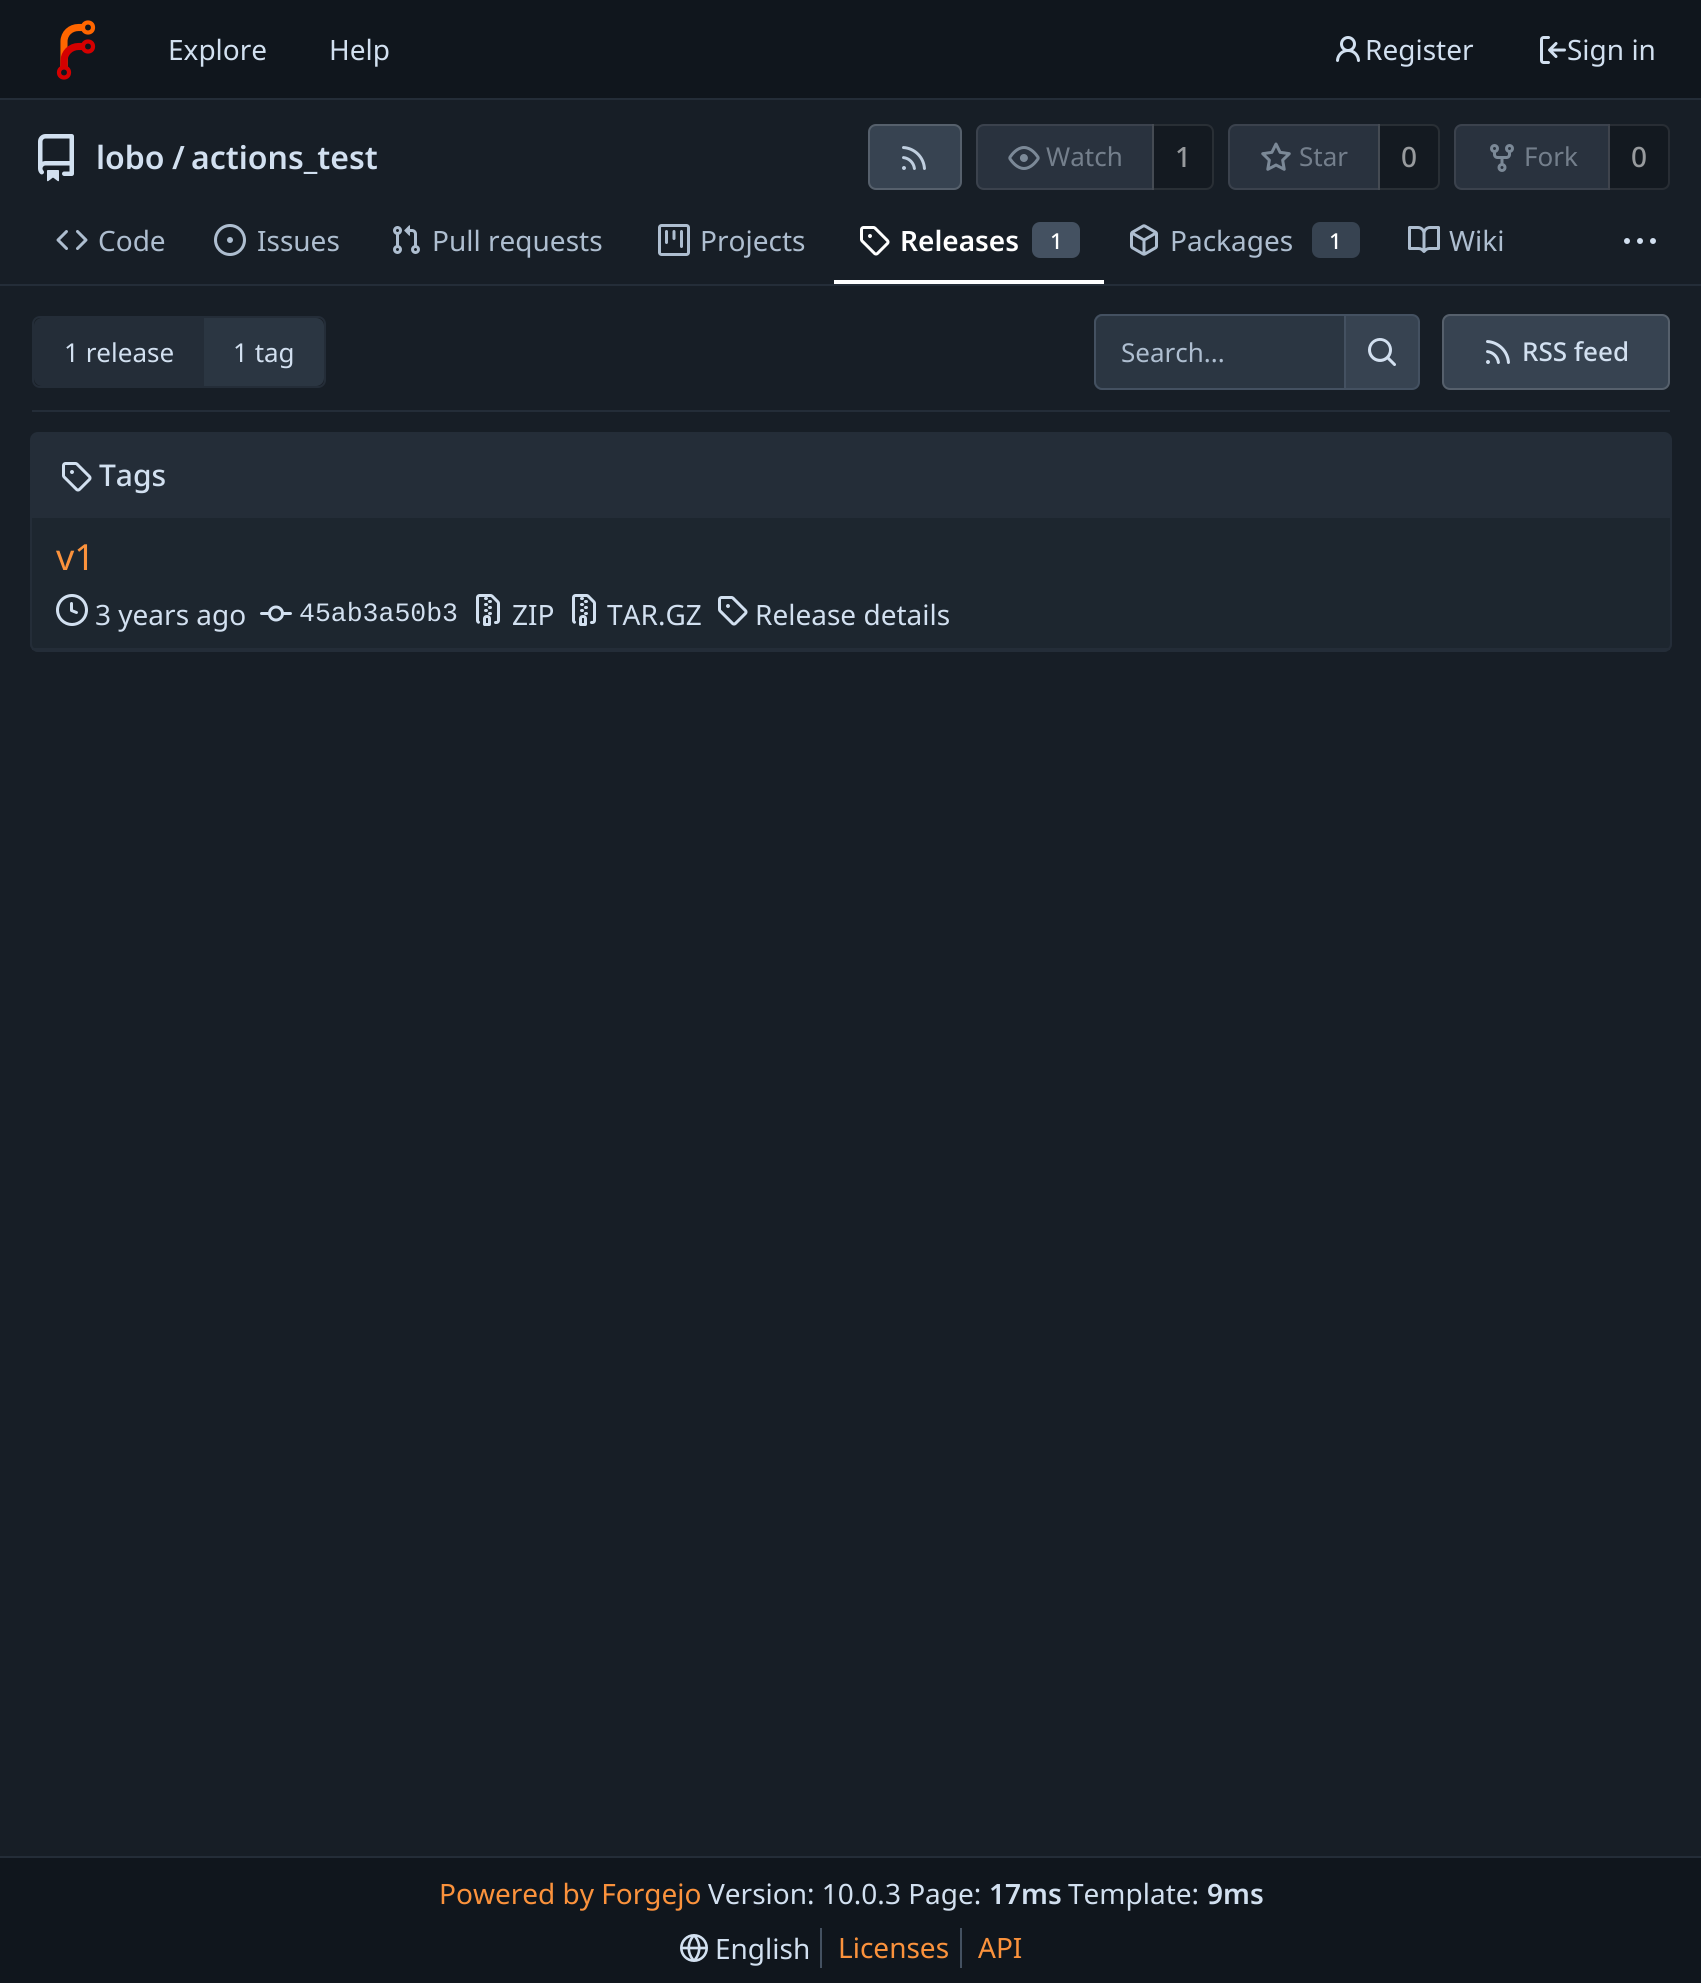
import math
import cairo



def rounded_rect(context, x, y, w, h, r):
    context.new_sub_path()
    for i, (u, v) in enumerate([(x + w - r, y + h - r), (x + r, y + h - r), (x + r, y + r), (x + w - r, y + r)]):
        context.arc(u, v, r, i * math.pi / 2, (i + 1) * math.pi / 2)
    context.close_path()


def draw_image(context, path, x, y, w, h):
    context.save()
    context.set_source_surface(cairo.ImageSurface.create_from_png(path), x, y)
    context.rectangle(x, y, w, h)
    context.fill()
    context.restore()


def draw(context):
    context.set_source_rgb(23 / 255, 30 / 255, 38 / 255)
    context.paint()
    context.set_source_rgb(16 / 255, 22 / 255, 29 / 255)
    context.rectangle(0, 0, 1701, 98)
    context.fill()
    context.set_source_rgb(36 / 255, 45 / 255, 56 / 255)
    context.rectangle(0, 98, 1701, 2)
    context.fill()
    context.new_path()
    context.move_to(64, 69)
    context.line_to(64, 41.5)
    context.curve_to(64, 33.5, 70.5, 27.5, 78.5, 27.5)
    context.line_to(84, 27.5)
    context.set_source_rgb(1, 102 / 255, 0)
    context.set_line_width(7.1)
    context.stroke()
    context.new_path()
    context.move_to(64, 69)
    context.line_to(64, 61)
    context.curve_to(64, 53, 70.5, 46.5, 78.5, 46.5)
    context.line_to(84, 46.5)
    context.set_source_rgb(212 / 255, 0, 0)
    context.stroke()
    context.arc(88, 27.5, 5, 0, 2 * math.pi)
    context.set_source_rgb(1, 102 / 255, 0)
    context.set_line_width(4.2)
    context.stroke()
    context.arc(88, 46.5, 5, 0, 2 * math.pi)
    context.set_source_rgb(212 / 255, 0, 0)
    context.stroke()
    context.arc(64, 72.5, 5, 0, 2 * math.pi)
    context.stroke()
    draw_image(context, "images/1.png", 1336, 36, 24, 26)
    draw_image(context, "images/2.png", 1540, 36, 26, 28)
    draw_image(context, "images/3.png", 38, 134, 36, 48)
    context.set_source_rgb(55 / 255, 67 / 255, 81 / 255)
    rounded_rect(context, 868, 124, 94, 66, 8)
    context.fill()
    rounded_rect(context, 869, 125, 92, 64, 7)
    context.set_source_rgba(1, 1, 1, 0.16)
    context.set_line_width(2)
    context.stroke()
    draw_image(context, "images/4.png", 902, 146, 24, 24)
    context.set_source_rgb(41 / 255, 50 / 255, 62 / 255)
    context.new_path()
    context.move_to(984, 124)
    context.line_to(1154, 124)
    context.line_to(1154, 190)
    context.line_to(984, 190)
    context.curve_to(979.5, 190, 976, 186.5, 976, 182)
    context.line_to(976, 132)
    context.curve_to(976, 127.5, 979.5, 124, 984, 124)
    context.close_path()
    context.fill()
    context.new_path()
    context.move_to(984, 125)
    context.line_to(1153, 125)
    context.line_to(1153, 189)
    context.line_to(984, 189)
    context.curve_to(980, 189, 977, 186, 977, 182)
    context.line_to(977, 132)
    context.curve_to(977, 128, 980, 125, 984, 125)
    context.close_path()
    context.set_source_rgba(151 / 255, 154 / 255, 157 / 255, 0.16)
    context.stroke()
    draw_image(context, "images/5.png", 1008, 146, 32, 24)
    context.set_source_rgba(0, 0, 0, 0.14)
    context.new_path()
    context.move_to(1152, 124)
    context.line_to(1206, 124)
    context.curve_to(1210.5, 124, 1214, 127.5, 1214, 132)
    context.line_to(1214, 182)
    context.curve_to(1214, 186.5, 1210.5, 190, 1206, 190)
    context.line_to(1152, 190)
    context.close_path()
    context.fill()
    context.new_path()
    context.move_to(1153, 125)
    context.line_to(1206, 125)
    context.curve_to(1210, 125, 1213, 128, 1213, 132)
    context.line_to(1213, 182)
    context.curve_to(1213, 186, 1210, 189, 1206, 189)
    context.line_to(1153, 189)
    context.close_path()
    context.set_source_rgba(1, 1, 1, 0.09)
    context.stroke()
    context.set_source_rgb(41 / 255, 50 / 255, 62 / 255)
    context.new_path()
    context.move_to(1236, 124)
    context.line_to(1380, 124)
    context.line_to(1380, 190)
    context.line_to(1236, 190)
    context.curve_to(1231.5, 190, 1228, 186.5, 1228, 182)
    context.line_to(1228, 132)
    context.curve_to(1228, 127.5, 1231.5, 124, 1236, 124)
    context.close_path()
    context.fill()
    context.new_path()
    context.move_to(1236, 125)
    context.line_to(1379, 125)
    context.line_to(1379, 189)
    context.line_to(1236, 189)
    context.curve_to(1232, 189, 1229, 186, 1229, 182)
    context.line_to(1229, 132)
    context.curve_to(1229, 128, 1232, 125, 1236, 125)
    context.close_path()
    context.set_source_rgba(151 / 255, 154 / 255, 157 / 255, 0.16)
    context.stroke()
    draw_image(context, "images/6.png", 1261, 142, 30, 29)
    context.set_source_rgba(0, 0, 0, 0.14)
    context.new_path()
    context.move_to(1378, 124)
    context.line_to(1432, 124)
    context.curve_to(1436.5, 124, 1440, 127.5, 1440, 132)
    context.line_to(1440, 182)
    context.curve_to(1440, 186.5, 1436.5, 190, 1432, 190)
    context.line_to(1378, 190)
    context.close_path()
    context.fill()
    context.new_path()
    context.move_to(1379, 125)
    context.line_to(1432, 125)
    context.curve_to(1436, 125, 1439, 128, 1439, 132)
    context.line_to(1439, 182)
    context.curve_to(1439, 186, 1436, 189, 1432, 189)
    context.line_to(1379, 189)
    context.close_path()
    context.set_source_rgba(1, 1, 1, 0.09)
    context.stroke()
    context.set_source_rgb(41 / 255, 50 / 255, 62 / 255)
    context.new_path()
    context.move_to(1462, 124)
    context.line_to(1610, 124)
    context.line_to(1610, 190)
    context.line_to(1462, 190)
    context.curve_to(1457.5, 190, 1454, 186.5, 1454, 182)
    context.line_to(1454, 132)
    context.curve_to(1454, 127.5, 1457.5, 124, 1462, 124)
    context.close_path()
    context.fill()
    context.new_path()
    context.move_to(1462, 125)
    context.line_to(1609, 125)
    context.line_to(1609, 189)
    context.line_to(1462, 189)
    context.curve_to(1458, 189, 1455, 186, 1455, 182)
    context.line_to(1455, 132)
    context.curve_to(1455, 128, 1458, 125, 1462, 125)
    context.close_path()
    context.set_source_rgba(151 / 255, 154 / 255, 157 / 255, 0.16)
    context.stroke()
    draw_image(context, "images/7.png", 1490, 144, 24, 28)
    context.set_source_rgba(10 / 255, 14 / 255, 17 / 255, 0.25)
    context.new_path()
    context.move_to(1608, 124)
    context.line_to(1662, 124)
    context.curve_to(1666.5, 124, 1670, 127.5, 1670, 132)
    context.line_to(1670, 182)
    context.curve_to(1670, 186.5, 1666.5, 190, 1662, 190)
    context.line_to(1608, 190)
    context.close_path()
    context.fill()
    context.new_path()
    context.move_to(1609, 125)
    context.line_to(1662, 125)
    context.curve_to(1666, 125, 1669, 128, 1669, 132)
    context.line_to(1669, 182)
    context.curve_to(1669, 186, 1666, 189, 1662, 189)
    context.line_to(1609, 189)
    context.close_path()
    context.set_source_rgba(151 / 255, 154 / 255, 157 / 255, 0.16)
    context.stroke()
    draw_image(context, "images/8.png", 56, 230, 32, 20)
    draw_image(context, "images/9.png", 214, 224, 32, 32)
    draw_image(context, "images/10.png", 393, 225, 27, 29)
    draw_image(context, "images/11.png", 658, 224, 32, 32)
    context.set_source_rgb(1, 1, 1)
    context.rectangle(834, 280, 270, 4)
    context.fill()
    draw_image(context, "images/12.png", 860, 226, 30, 30)
    context.set_source_rgb(68 / 255, 81 / 255, 97 / 255)
    rounded_rect(context, 1032, 222, 48, 36, 8)
    context.fill()
    draw_image(context, "images/13.png", 1130, 224, 28, 32)
    context.set_source_rgb(55 / 255, 67 / 255, 81 / 255)
    rounded_rect(context, 1312, 222, 48, 36, 8)
    context.fill()
    draw_image(context, "images/14.png", 1408, 226, 32, 27)
    draw_image(context, "images/15.png", 1624, 238, 32, 6)
    context.set_source_rgb(36 / 255, 45 / 255, 56 / 255)
    context.rectangle(0, 284, 1701, 2)
    context.fill()
    rounded_rect(context, 33, 317, 292, 70, 7)
    context.stroke()
    context.new_path()
    context.move_to(42, 318)
    context.line_to(204, 318)
    context.line_to(204, 386)
    context.line_to(42, 386)
    context.curve_to(37.5, 386, 34, 382.5, 34, 378)
    context.line_to(34, 326)
    context.curve_to(34, 321.5, 37.5, 318, 42, 318)
    context.close_path()
    context.fill()
    context.set_source_rgb(43 / 255, 54 / 255, 66 / 255)
    context.new_path()
    context.move_to(204, 318)
    context.line_to(316, 318)
    context.curve_to(320.5, 318, 324, 321.5, 324, 326)
    context.line_to(324, 378)
    context.curve_to(324, 382.5, 320.5, 386, 316, 386)
    context.line_to(204, 386)
    context.close_path()
    context.fill()
    context.new_path()
    context.move_to(1102, 314)
    context.line_to(1344, 314)
    context.line_to(1344, 390)
    context.line_to(1102, 390)
    context.curve_to(1097.5, 390, 1094, 386.5, 1094, 382)
    context.line_to(1094, 322)
    context.curve_to(1094, 317.5, 1097.5, 314, 1102, 314)
    context.close_path()
    context.fill()
    context.set_source_rgb(68 / 255, 81 / 255, 97 / 255)
    context.set_fill_rule(cairo.FillRule.EVEN_ODD)
    context.new_path()
    context.move_to(1102, 314)
    context.line_to(1344, 314)
    context.line_to(1344, 390)
    context.line_to(1102, 390)
    context.curve_to(1098, 390, 1094, 386, 1094, 382)
    context.line_to(1094, 322)
    context.curve_to(1094, 318, 1098, 314, 1102, 314)
    context.close_path()
    context.move_to(1102, 316)
    context.line_to(1344, 316)
    context.line_to(1344, 388)
    context.line_to(1102, 388)
    context.curve_to(1099, 388, 1096, 385, 1096, 382)
    context.line_to(1096, 322)
    context.curve_to(1096, 319, 1099, 316, 1102, 316)
    context.close_path()
    context.fill()
    context.set_source_rgb(55 / 255, 67 / 255, 81 / 255)
    context.new_path()
    context.move_to(1345, 315)
    context.line_to(1412, 315)
    context.curve_to(1416, 315, 1419, 318, 1419, 322)
    context.line_to(1419, 382)
    context.curve_to(1419, 386, 1416, 389, 1412, 389)
    context.line_to(1345, 389)
    context.close_path()
    context.fill_preserve()
    context.set_source_rgb(68 / 255, 81 / 255, 97 / 255)
    context.stroke()
    draw_image(context, "images/16.png", 1368, 338, 28, 28)
    context.set_source_rgb(55 / 255, 67 / 255, 81 / 255)
    rounded_rect(context, 1442, 314, 228, 76, 8)
    context.fill()
    rounded_rect(context, 1443, 315, 226, 74, 7)
    context.set_source_rgba(1, 1, 1, 0.16)
    context.stroke()
    draw_image(context, "images/17.png", 1486, 340, 24, 24)
    context.set_source_rgb(36 / 255, 45 / 255, 56 / 255)
    context.rectangle(32, 410, 1638, 2)
    context.fill()
    context.new_path()
    context.move_to(38, 433)
    context.line_to(1664, 433)
    context.curve_to(1668, 433, 1671, 436, 1671, 440)
    context.line_to(1671, 517)
    context.line_to(31, 517)
    context.line_to(31, 440)
    context.curve_to(31, 436, 34, 433, 38, 433)
    context.close_path()
    context.fill_preserve()
    context.stroke()
    draw_image(context, "images/18.png", 62, 462, 30, 30)
    context.set_source_rgb(29 / 255, 38 / 255, 47 / 255)
    context.new_path()
    context.move_to(30, 518)
    context.line_to(1672, 518)
    context.line_to(1672, 644)
    context.curve_to(1672, 648.5, 1668.5, 652, 1664, 652)
    context.line_to(38, 652)
    context.curve_to(33.5, 652, 30, 648.5, 30, 644)
    context.close_path()
    context.fill()
    context.set_source_rgb(36 / 255, 45 / 255, 56 / 255)
    context.new_path()
    context.move_to(30, 518)
    context.line_to(1672, 518)
    context.line_to(1672, 644)
    context.curve_to(1672, 648, 1668, 652, 1664, 652)
    context.line_to(38, 652)
    context.curve_to(34, 652, 30, 648, 30, 644)
    context.close_path()
    context.move_to(32, 518)
    context.line_to(1670, 518)
    context.line_to(1670, 644)
    context.curve_to(1670, 647, 1667, 650, 1664, 650)
    context.line_to(38, 650)
    context.curve_to(35, 650, 32, 647, 32, 644)
    context.close_path()
    context.fill()
    context.rectangle(32, 648, 1638, 2)
    context.fill()
    draw_image(context, "images/19.png", 56, 594, 32, 32)
    draw_image(context, "images/20.png", 260, 605, 32, 17)
    draw_image(context, "images/21.png", 476, 594, 24, 32)
    draw_image(context, "images/21.png", 572, 594, 24, 32)
    draw_image(context, "images/22.png", 718, 596, 30, 30)
    context.set_source_rgb(16 / 255, 22 / 255, 29 / 255)
    context.rectangle(0, 1858, 1701, 125)
    context.fill()
    context.set_source_rgb(36 / 255, 45 / 255, 56 / 255)
    context.rectangle(0, 1856, 1701, 2)
    context.fill()
    draw_image(context, "images/23.png", 680, 1934, 28, 28)
    context.set_source_rgb(68 / 255, 81 / 255, 97 / 255)
    context.rectangle(820, 1928, 2, 40)
    context.fill()
    context.rectangle(960, 1928, 2, 40)
    context.fill()
    context.select_font_face("Noto Sans")
    context.set_font_size(28)
    context.set_source_rgb(210 / 255, 224 / 255, 240 / 255)
    context.move_to(168, 60)
    context.show_text("Explore")
    context.move_to(329, 60)
    context.show_text("Help")
    context.move_to(1365, 60)
    context.show_text("Register")
    context.move_to(1567, 60)
    context.show_text("Sign in")
    context.select_font_face("Noto Sans SemiBold")
    context.set_font_size(32)
    context.move_to(96, 169)
    context.show_text("lobo")
    context.move_to(172, 169)
    context.show_text("/")
    context.move_to(191, 169)
    context.show_text("actions_test")
    context.select_font_face("Noto Sans")
    context.set_font_size(26)
    context.set_source_rgb(116 / 255, 127 / 255, 140 / 255)
    context.move_to(1046, 166)
    context.show_text("Watch")
    context.select_font_face("Noto Sans Medium")
    context.set_font_size(28)
    context.set_source_rgb(151 / 255, 154 / 255, 157 / 255)
    context.move_to(1175, 167)
    context.show_text("1")
    context.select_font_face("Noto Sans")
    context.set_font_size(26)
    context.set_source_rgb(116 / 255, 127 / 255, 140 / 255)
    context.move_to(1299, 166)
    context.show_text("Star")
    context.select_font_face("Noto Sans Medium")
    context.set_font_size(28)
    context.set_source_rgb(151 / 255, 154 / 255, 157 / 255)
    context.move_to(1401, 167)
    context.show_text("0")
    context.select_font_face("Noto Sans")
    context.set_font_size(26)
    context.set_source_rgb(116 / 255, 127 / 255, 140 / 255)
    context.move_to(1524, 166)
    context.show_text("Fork")
    context.select_font_face("Noto Sans Medium")
    context.set_font_size(28)
    context.set_source_rgb(151 / 255, 154 / 255, 157 / 255)
    context.move_to(1631, 167)
    context.show_text("0")
    context.select_font_face("Noto Sans")
    context.set_source_rgb(174 / 255, 190 / 255, 208 / 255)
    context.move_to(98, 251)
    context.show_text("Code")
    context.move_to(257, 251)
    context.show_text("Issues")
    context.move_to(432, 251)
    context.show_text("Pull requests")
    context.move_to(700, 251)
    context.show_text("Projects")
    context.select_font_face("Noto Sans SemiBold")
    context.set_source_rgb(1, 1, 1)
    context.move_to(900, 251)
    context.show_text("Releases")
    context.select_font_face("Noto Sans Medium")
    context.set_font_size(22)
    context.move_to(1050, 249)
    context.show_text("1")
    context.select_font_face("Noto Sans")
    context.set_font_size(28)
    context.set_source_rgb(174 / 255, 190 / 255, 208 / 255)
    context.move_to(1170, 251)
    context.show_text("Packages")
    context.select_font_face("Noto Sans Medium")
    context.set_font_size(22)
    context.set_source_rgb(1, 1, 1)
    context.move_to(1329, 249)
    context.show_text("1")
    context.select_font_face("Noto Sans")
    context.set_font_size(28)
    context.set_source_rgb(174 / 255, 190 / 255, 208 / 255)
    context.move_to(1449, 251)
    context.show_text("Wiki")
    context.set_font_size(26)
    context.set_source_rgb(210 / 255, 224 / 255, 240 / 255)
    context.move_to(64, 362)
    context.show_text("1 release")
    context.move_to(233, 362)
    context.show_text("1 tag")
    context.set_source_rgb(174 / 255, 190 / 255, 208 / 255)
    context.move_to(1121, 362)
    context.show_text("Search...")
    context.select_font_face("Noto Sans Medium")
    context.set_source_rgb(210 / 255, 224 / 255, 240 / 255)
    context.move_to(1522, 361)
    context.show_text("RSS feed")
    context.set_font_size(30)
    context.move_to(99, 486)
    context.show_text("Tags")
    context.select_font_face("Noto Sans")
    context.set_font_size(36)
    context.set_source_rgb(251 / 255, 146 / 255, 60 / 255)
    context.move_to(56, 570)
    context.show_text("v1")
    context.set_font_size(28)
    context.set_source_rgb(210 / 255, 224 / 255, 240 / 255)
    context.move_to(95, 625)
    context.show_text("3 years ago")
    context.select_font_face("Liberation Mono")
    context.set_font_size(26.5)
    context.move_to(299, 621)
    context.show_text("45ab3a50b3")
    context.select_font_face("Noto Sans")
    context.set_font_size(28)
    context.move_to(512, 625)
    context.show_text("ZIP")
    context.move_to(607, 625)
    context.show_text("TAR.GZ")
    context.move_to(755, 625)
    context.show_text("Release details")
    context.set_source_rgb(251 / 255, 146 / 255, 60 / 255)
    context.move_to(439, 1904)
    context.show_text("Powered by Forgejo")
    context.set_source_rgb(210 / 255, 224 / 255, 240 / 255)
    context.move_to(708, 1904)
    context.show_text("Version: 10.0.3 Page:")
    context.select_font_face("Noto Sans SemiBold")
    context.move_to(989, 1904)
    context.show_text("17ms")
    context.select_font_face("Noto Sans")
    context.move_to(1068, 1904)
    context.show_text("Template:")
    context.select_font_face("Noto Sans SemiBold")
    context.move_to(1207, 1904)
    context.show_text("9ms")
    context.select_font_face("Noto Sans")
    context.move_to(715, 1959)
    context.show_text("English")
    context.set_source_rgb(251 / 255, 146 / 255, 60 / 255)
    context.move_to(838, 1958)
    context.show_text("Licenses")
    context.move_to(978, 1958)
    context.show_text("API")


surface = cairo.ImageSurface(cairo.Format.RGB24, 1701, 1983)
context = cairo.Context(surface)
options = cairo.FontOptions()
options.set_hint_metrics(cairo.HintMetrics.OFF)
options.set_hint_style(cairo.HintStyle.NONE)
context.set_font_options(options)
context.set_miter_limit(4)
draw(context)
surface.write_to_png("out.png")
